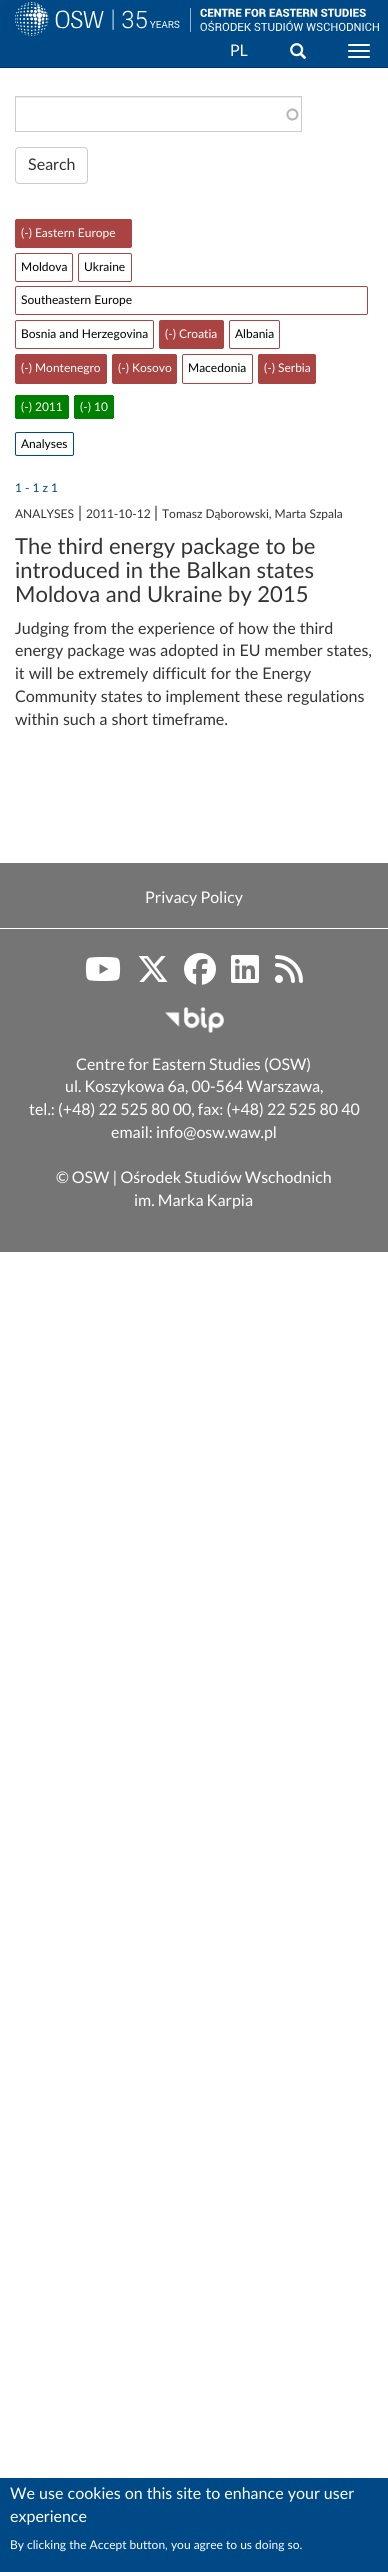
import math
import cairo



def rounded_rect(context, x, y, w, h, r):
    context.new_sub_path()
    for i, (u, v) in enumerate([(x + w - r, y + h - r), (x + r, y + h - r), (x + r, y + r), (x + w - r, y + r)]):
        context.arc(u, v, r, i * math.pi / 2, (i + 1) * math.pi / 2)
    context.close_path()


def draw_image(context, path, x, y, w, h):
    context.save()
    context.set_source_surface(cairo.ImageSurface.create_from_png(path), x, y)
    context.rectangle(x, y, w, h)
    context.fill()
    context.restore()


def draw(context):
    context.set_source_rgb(1, 1, 1)
    context.paint()
    context.set_source_rgb(0, 73 / 255, 135 / 255)
    context.rectangle(0, 0, 388, 67)
    context.fill()
    context.set_source_rgb(0, 55 / 255, 102 / 255)
    context.rectangle(0, 67, 388, 1)
    context.fill()
    draw_image(context, "images/1.png", 15, 2, 165, 34)
    draw_image(context, "images/2.png", 190, 8, 189, 24)
    draw_image(context, "images/3.png", 290, 43, 17, 17)
    context.set_source_rgb(1, 1, 1)
    rounded_rect(context, 348, 44, 22, 2, 1)
    context.fill()
    rounded_rect(context, 348, 50, 22, 2, 1)
    context.fill()
    rounded_rect(context, 348, 56, 22, 2, 1)
    context.fill()
    draw_image(context, "images/4.png", 286, 108, 13, 13)
    context.set_source_rgb(236 / 255, 236 / 255, 236 / 255)
    context.rectangle(16, 97, 285, 1)
    context.fill()
    context.rectangle(15.5, 96.5, 286, 35)
    context.set_source_rgb(204 / 255, 204 / 255, 204 / 255)
    context.set_line_width(1)
    context.stroke()
    rounded_rect(context, 15.5, 147.5, 72, 36, 3.5)
    context.stroke()
    context.set_source_rgb(169 / 255, 68 / 255, 66 / 255)
    rounded_rect(context, 15.5, 219.5, 116, 28, 1.5)
    context.fill_preserve()
    context.stroke()
    rounded_rect(context, 15.5, 253.5, 57, 28, 1.5)
    context.stroke()
    rounded_rect(context, 78.5, 253.5, 53, 28, 1.5)
    context.stroke()
    rounded_rect(context, 15.5, 286.5, 352, 28, 1.5)
    context.stroke()
    rounded_rect(context, 15.5, 320.5, 138, 28, 1.5)
    context.stroke()
    rounded_rect(context, 159.5, 320.5, 64, 28, 1.5)
    context.fill_preserve()
    context.stroke()
    rounded_rect(context, 229.5, 320.5, 50, 28, 1.5)
    context.stroke()
    rounded_rect(context, 15.5, 354.5, 91, 29, 1.5)
    context.fill_preserve()
    context.stroke()
    rounded_rect(context, 112.5, 354.5, 64, 29, 1.5)
    context.fill_preserve()
    context.stroke()
    rounded_rect(context, 182.5, 354.5, 70, 29, 1.5)
    context.stroke()
    rounded_rect(context, 258.5, 354.5, 57, 29, 1.5)
    context.fill_preserve()
    context.stroke()
    context.set_source_rgb(0, 128 / 255, 0)
    context.new_path()
    context.move_to(17, 395)
    context.line_to(32, 395)
    context.line_to(32, 419)
    context.line_to(17, 419)
    context.curve_to(16, 419, 15, 418, 15, 417)
    context.line_to(15, 397)
    context.curve_to(15, 396, 16, 395, 17, 395)
    context.close_path()
    context.fill()
    context.rectangle(16, 395, 1, 1)
    context.fill()
    context.rectangle(16, 418, 1, 1)
    context.fill()
    context.rectangle(15, 396, 1, 22)
    context.fill()
    context.rectangle(32, 395, 3, 24)
    context.fill()
    context.new_path()
    context.move_to(35, 395)
    context.line_to(67, 395)
    context.curve_to(68, 395, 69, 396, 69, 397)
    context.line_to(69, 417)
    context.curve_to(69, 418, 68, 419, 67, 419)
    context.line_to(35, 419)
    context.close_path()
    context.fill()
    context.rectangle(67, 395, 1, 1)
    context.fill()
    context.rectangle(68, 396, 1, 22)
    context.fill()
    context.rectangle(67, 418, 1, 1)
    context.fill()
    context.new_path()
    context.move_to(76, 395)
    context.line_to(91, 395)
    context.line_to(91, 419)
    context.line_to(76, 419)
    context.curve_to(75, 419, 74, 418, 74, 417)
    context.line_to(74, 397)
    context.curve_to(74, 396, 75, 395, 76, 395)
    context.close_path()
    context.fill()
    context.rectangle(75, 395, 1, 1)
    context.fill()
    context.rectangle(75, 418, 1, 1)
    context.fill()
    context.rectangle(74, 396, 1, 22)
    context.fill()
    context.rectangle(91, 395, 3, 24)
    context.fill()
    context.new_path()
    context.move_to(94, 395)
    context.line_to(112, 395)
    context.curve_to(113, 395, 114, 396, 114, 397)
    context.line_to(114, 417)
    context.curve_to(114, 418, 113, 419, 112, 419)
    context.line_to(94, 419)
    context.close_path()
    context.fill()
    context.rectangle(112, 395, 1, 1)
    context.fill()
    context.rectangle(113, 396, 1, 22)
    context.fill()
    context.rectangle(112, 418, 1, 1)
    context.fill()
    rounded_rect(context, 15.5, 432.5, 58, 23, 1.5)
    context.set_source_rgb(0, 73 / 255, 135 / 255)
    context.stroke()
    context.set_source_rgb(117 / 255, 117 / 255, 117 / 255)
    context.rectangle(0, 863, 388, 389)
    context.fill()
    context.set_source_rgb(1, 1, 1)
    context.rectangle(0, 928, 388, 1)
    context.fill()
    draw_image(context, "images/5.png", 85, 957, 36, 24)
    draw_image(context, "images/6.png", 138, 956, 30, 26)
    draw_image(context, "images/7.png", 184, 953, 32, 32)
    draw_image(context, "images/8.png", 231, 955, 28, 28)
    draw_image(context, "images/9.png", 275, 955, 28, 28)
    draw_image(context, "images/10.png", 165, 1007, 59, 26)
    context.set_source_rgb(0, 73 / 255, 135 / 255)
    context.rectangle(0, 2478, 388, 94)
    context.fill()
    context.select_font_face("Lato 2")
    context.set_font_size(16)
    context.set_source_rgb(1, 1, 1)
    context.move_to(230, 56)
    context.show_text("PL")
    context.set_source_rgb(51 / 255, 51 / 255, 51 / 255)
    context.move_to(28, 170)
    context.show_text("Search")
    context.set_font_size(12)
    context.set_source_rgb(1, 1, 1)
    context.move_to(21, 237)
    context.show_text("(-) Eastern Europe")
    context.set_source_rgb(0, 0, 0)
    context.move_to(21, 271)
    context.show_text("Moldova")
    context.move_to(84, 271)
    context.show_text("Ukraine")
    context.move_to(21, 304)
    context.show_text("Southeastern Europe")
    context.move_to(21, 338)
    context.show_text("Bosnia and Herzegovina")
    context.set_source_rgb(1, 1, 1)
    context.move_to(165, 338)
    context.show_text("(-) Croatia")
    context.set_source_rgb(0, 0, 0)
    context.move_to(235, 338)
    context.show_text("Albania")
    context.set_source_rgb(1, 1, 1)
    context.move_to(21, 372)
    context.show_text("(-) Montenegro")
    context.move_to(118, 372)
    context.show_text("(-) Kosovo")
    context.set_source_rgb(0, 0, 0)
    context.move_to(188, 372)
    context.show_text("Macedonia")
    context.set_source_rgb(1, 1, 1)
    context.move_to(264, 372)
    context.show_text("(-) Serbia")
    context.move_to(21, 411)
    context.show_text("(-) 2011")
    context.move_to(80, 411)
    context.show_text("(-) 10")
    context.set_source_rgb(0, 0, 0)
    context.move_to(21, 448)
    context.show_text("Analyses")
    context.set_source_rgb(0, 73 / 255, 135 / 255)
    context.move_to(15, 492)
    context.show_text("1 - 1 z 1")
    context.set_source_rgb(51 / 255, 51 / 255, 51 / 255)
    context.move_to(15, 518)
    context.show_text("ANALYSES")
    context.set_font_size(16)
    context.move_to(78, 518)
    context.show_text("|")
    context.set_font_size(12)
    context.move_to(86, 518)
    context.show_text("2011-10-12")
    context.set_font_size(16)
    context.move_to(154, 518)
    context.show_text("|")
    context.set_font_size(12)
    context.move_to(162, 518)
    context.show_text("Tomasz Dąborowski, Marta Szpala")
    context.set_font_size(22)
    context.move_to(15, 554)
    context.show_text("The third energy package to be")
    context.move_to(15, 578)
    context.show_text("introduced in the Balkan states")
    context.move_to(15, 602)
    context.show_text("Moldova and Ukraine by 2015")
    context.set_font_size(16)
    context.move_to(15, 634)
    context.show_text("Judging from the experience of how the third")
    context.move_to(15, 656)
    context.show_text("energy package was adopted in EU member states,")
    context.move_to(15, 679)
    context.show_text("it will be extremely difficult for the Energy")
    context.move_to(15, 702)
    context.show_text("Community states to implement these regulations")
    context.move_to(15, 725)
    context.show_text("within such a short timeframe.")
    context.select_font_face("Lato")
    context.set_source_rgb(1, 1, 1)
    context.move_to(145, 903)
    context.show_text("Privacy Policy")
    context.move_to(76, 1070)
    context.show_text("Centre for Eastern Studies (OSW)")
    context.move_to(65, 1092)
    context.show_text("ul. Koszykowa 6a, 00-564 Warszawa,")
    context.move_to(29, 1115)
    context.show_text("tel.: (+48) 22 525 80 00, fax: (+48) 22 525 80 40")
    context.move_to(111, 1138)
    context.show_text("email: info@osw.waw.pl")
    context.move_to(56, 1183)
    context.show_text("© OSW | Ośrodek Studiów Wschodnich")
    context.move_to(134, 1206)
    context.show_text("im. Marka Karpia")
    context.select_font_face("Lato 2")
    context.move_to(10, 2499)
    context.show_text("We use cookies on this site to enhance your user")
    context.move_to(10, 2522)
    context.show_text("experience")
    context.set_font_size(12)
    context.move_to(10, 2549)
    context.show_text("By clicking the Accept button, you agree to us doing so.")


surface = cairo.ImageSurface(cairo.Format.RGB24, 388, 2572)
context = cairo.Context(surface)
options = cairo.FontOptions()
options.set_hint_metrics(cairo.HintMetrics.OFF)
options.set_hint_style(cairo.HintStyle.NONE)
context.set_font_options(options)
context.set_miter_limit(4)
draw(context)
surface.write_to_png("out.png")
